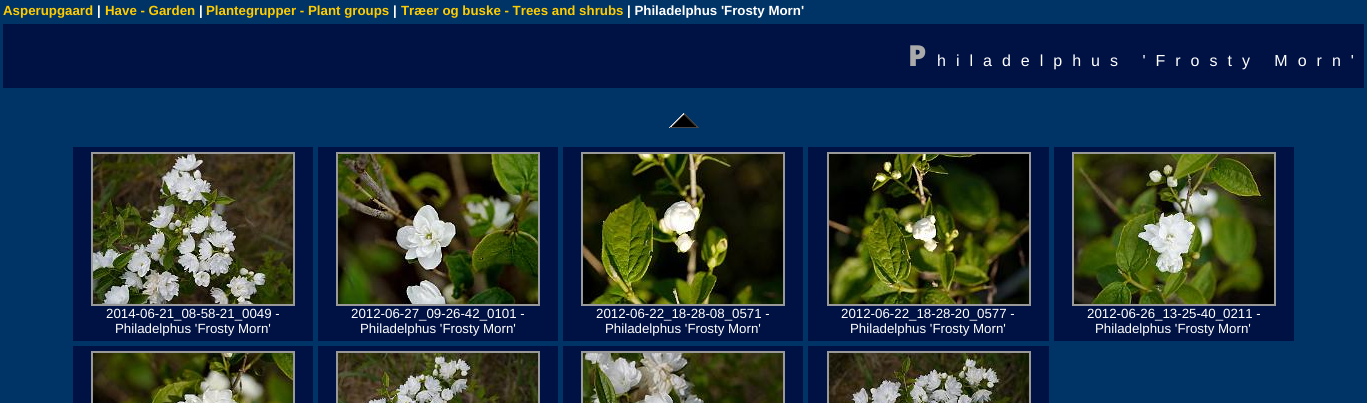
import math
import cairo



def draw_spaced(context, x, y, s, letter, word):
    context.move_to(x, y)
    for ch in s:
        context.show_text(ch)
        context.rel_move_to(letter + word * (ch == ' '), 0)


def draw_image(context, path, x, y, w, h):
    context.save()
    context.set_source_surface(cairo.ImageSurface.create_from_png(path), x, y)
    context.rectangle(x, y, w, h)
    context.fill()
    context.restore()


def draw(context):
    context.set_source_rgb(0, 51 / 255, 102 / 255)
    context.paint()
    context.set_source_rgb(0, 17 / 255, 68 / 255)
    context.rectangle(3, 24, 1361, 64)
    context.fill()
    draw_image(context, "images/1.png", 669, 113, 30, 15)
    context.rectangle(73, 147, 240, 194)
    context.fill()
    context.rectangle(92, 153, 202, 152)
    context.set_source_rgb(153 / 255, 153 / 255, 153 / 255)
    context.stroke()
    draw_image(context, "images/2.png", 93, 154, 200, 150)
    context.set_source_rgb(0, 17 / 255, 68 / 255)
    context.rectangle(318, 147, 240, 194)
    context.fill()
    context.rectangle(337, 153, 202, 152)
    context.set_source_rgb(153 / 255, 153 / 255, 153 / 255)
    context.stroke()
    draw_image(context, "images/3.png", 338, 154, 200, 150)
    context.set_source_rgb(0, 17 / 255, 68 / 255)
    context.rectangle(563, 147, 240, 194)
    context.fill()
    context.rectangle(582, 153, 202, 152)
    context.set_source_rgb(153 / 255, 153 / 255, 153 / 255)
    context.stroke()
    draw_image(context, "images/4.png", 583, 154, 200, 150)
    context.set_source_rgb(0, 17 / 255, 68 / 255)
    context.rectangle(808, 147, 241, 194)
    context.fill()
    context.rectangle(828, 153, 202, 152)
    context.set_source_rgb(153 / 255, 153 / 255, 153 / 255)
    context.stroke()
    draw_image(context, "images/5.png", 829, 154, 200, 150)
    context.set_source_rgb(0, 17 / 255, 68 / 255)
    context.rectangle(1054, 147, 240, 194)
    context.fill()
    context.rectangle(1073, 153, 202, 152)
    context.set_source_rgb(153 / 255, 153 / 255, 153 / 255)
    context.stroke()
    draw_image(context, "images/6.png", 1074, 154, 200, 150)
    context.set_source_rgb(0, 17 / 255, 68 / 255)
    context.rectangle(73, 346, 240, 57)
    context.fill()
    context.rectangle(92, 352, 202, 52)
    context.set_source_rgb(153 / 255, 153 / 255, 153 / 255)
    context.stroke()
    draw_image(context, "images/7.png", 93, 353, 200, 50)
    context.set_source_rgb(0, 17 / 255, 68 / 255)
    context.rectangle(318, 346, 240, 57)
    context.fill()
    context.rectangle(337, 352, 202, 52)
    context.set_source_rgb(153 / 255, 153 / 255, 153 / 255)
    context.stroke()
    draw_image(context, "images/8.png", 338, 353, 200, 50)
    context.set_source_rgb(0, 17 / 255, 68 / 255)
    context.rectangle(563, 346, 240, 57)
    context.fill()
    context.rectangle(582, 352, 202, 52)
    context.set_source_rgb(153 / 255, 153 / 255, 153 / 255)
    context.stroke()
    draw_image(context, "images/9.png", 583, 353, 200, 50)
    context.set_source_rgb(0, 17 / 255, 68 / 255)
    context.rectangle(808, 346, 241, 57)
    context.fill()
    context.rectangle(828, 352, 202, 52)
    context.set_source_rgb(153 / 255, 153 / 255, 153 / 255)
    context.stroke()
    draw_image(context, "images/10.png", 829, 353, 200, 50)
    context.select_font_face("Liberation Sans", cairo.FontSlant.NORMAL, cairo.FontWeight.BOLD)
    context.set_font_size(13.3)
    context.set_source_rgb(1, 204 / 255, 0)
    context.move_to(3, 15)
    context.show_text("Asperupgaard")
    context.set_source_rgb(1, 1, 1)
    context.move_to(97, 15)
    context.show_text("|")
    context.set_source_rgb(1, 204 / 255, 0)
    context.move_to(105, 15)
    context.show_text("Have - Garden")
    context.set_source_rgb(1, 1, 1)
    context.move_to(199, 15)
    context.show_text("|")
    context.set_source_rgb(1, 204 / 255, 0)
    context.move_to(206, 15)
    context.show_text("Plantegrupper - Plant groups")
    context.set_source_rgb(1, 1, 1)
    context.move_to(393, 15)
    context.show_text("|")
    context.set_source_rgb(1, 204 / 255, 0)
    context.move_to(401, 15)
    context.show_text("Træer og buske - Trees and shrubs")
    context.set_source_rgb(1, 1, 1)
    context.move_to(627, 15)
    context.show_text("| Philadelphus 'Frosty Morn'")
    context.select_font_face("Noto Sans Black")
    context.set_font_size(29)
    context.set_source_rgb(170 / 255, 170 / 255, 170 / 255)
    draw_spaced(context, 908, 66, "P", 10, 0)
    context.select_font_face("Liberation Sans")
    context.set_font_size(16)
    context.set_source_rgb(1, 1, 1)
    draw_spaced(context, 937, 66, "hiladelphus 'Frosty Morn'", 10, 0)
    context.set_font_size(13.3)
    context.move_to(106, 318)
    context.show_text("2014-06-21_08-58-21_0049 -")
    context.move_to(115, 333)
    context.show_text("Philadelphus 'Frosty Morn'")
    context.move_to(351, 318)
    context.show_text("2012-06-27_09-26-42_0101 -")
    context.move_to(360, 333)
    context.show_text("Philadelphus 'Frosty Morn'")
    context.move_to(596, 318)
    context.show_text("2012-06-22_18-28-08_0571 -")
    context.move_to(605, 333)
    context.show_text("Philadelphus 'Frosty Morn'")
    context.move_to(841, 318)
    context.show_text("2012-06-22_18-28-20_0577 -")
    context.move_to(850, 333)
    context.show_text("Philadelphus 'Frosty Morn'")
    context.move_to(1087, 318)
    context.show_text("2012-06-26_13-25-40_0211 -")
    context.move_to(1095, 333)
    context.show_text("Philadelphus 'Frosty Morn'")


surface = cairo.ImageSurface(cairo.Format.RGB24, 1367, 403)
context = cairo.Context(surface)
options = cairo.FontOptions()
options.set_hint_metrics(cairo.HintMetrics.OFF)
options.set_hint_style(cairo.HintStyle.NONE)
context.set_font_options(options)
context.set_miter_limit(4)
draw(context)
surface.write_to_png("out.png")
